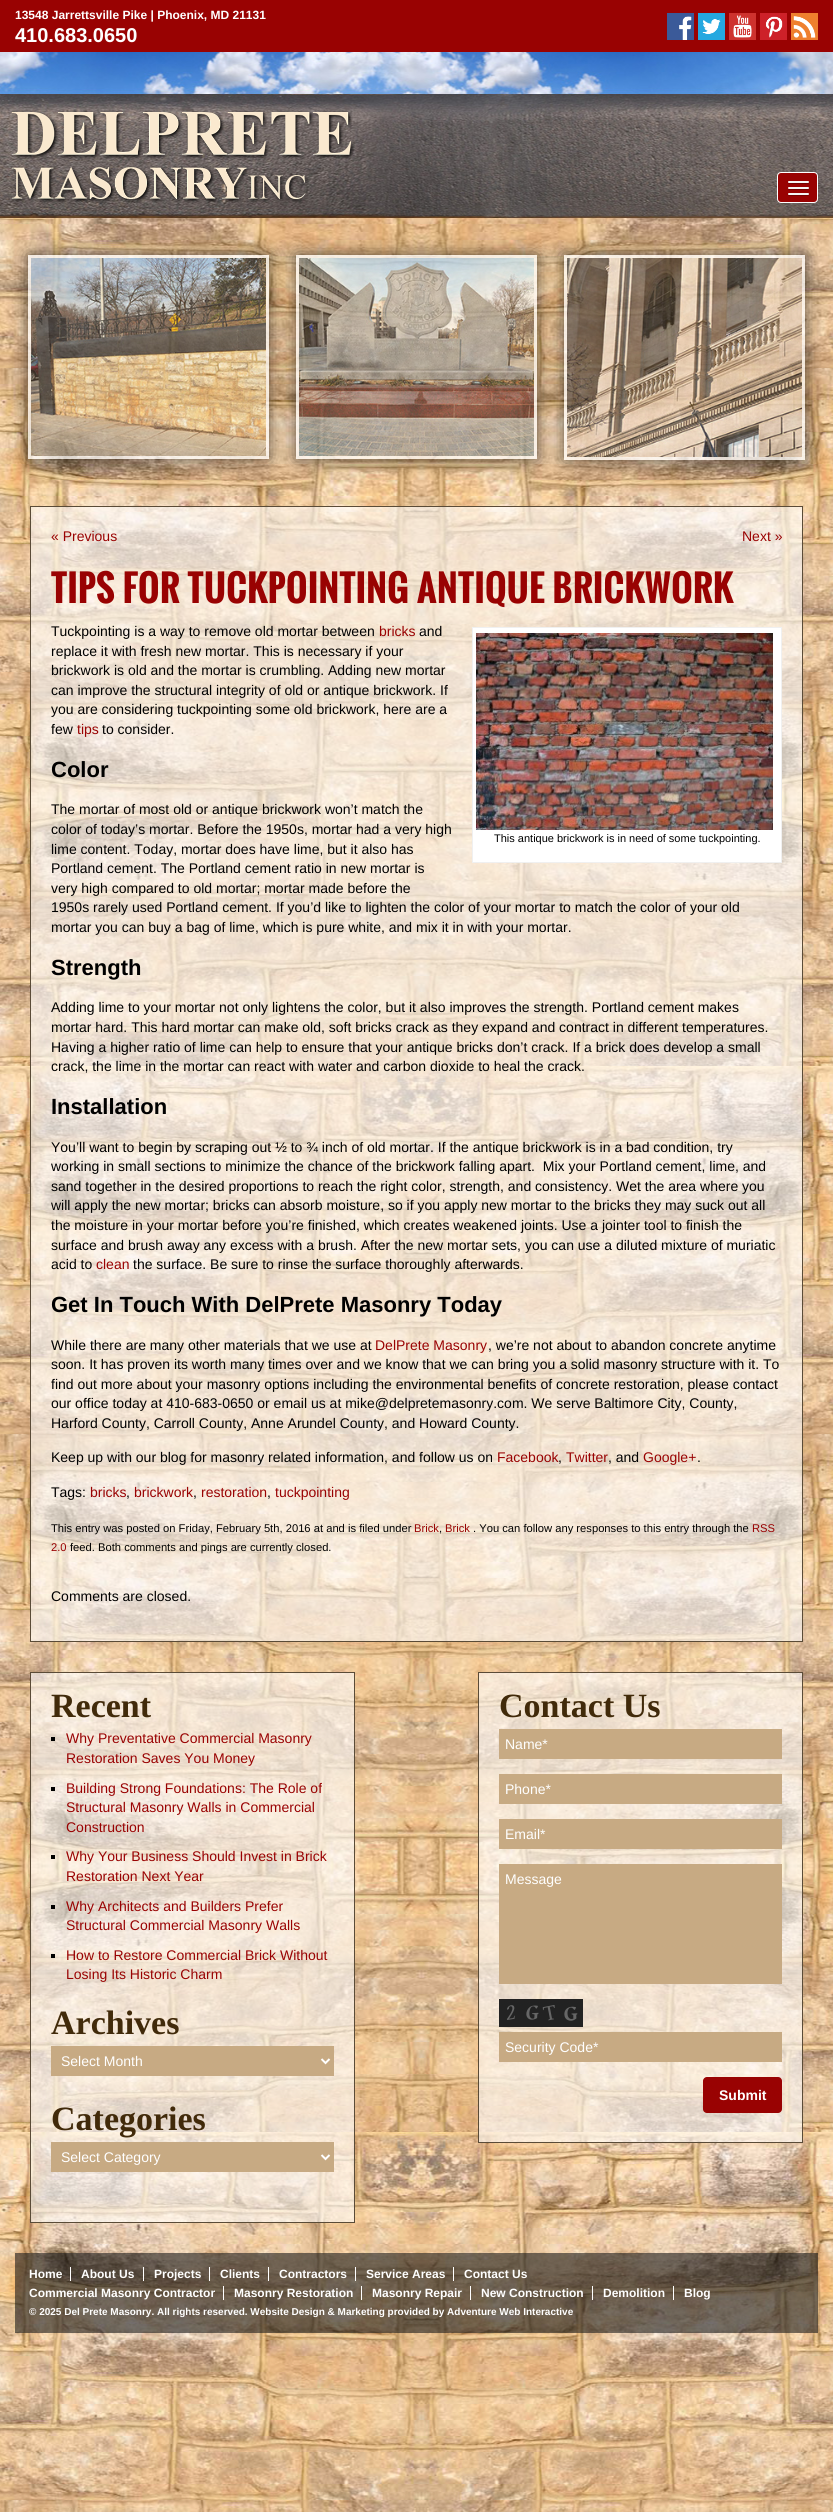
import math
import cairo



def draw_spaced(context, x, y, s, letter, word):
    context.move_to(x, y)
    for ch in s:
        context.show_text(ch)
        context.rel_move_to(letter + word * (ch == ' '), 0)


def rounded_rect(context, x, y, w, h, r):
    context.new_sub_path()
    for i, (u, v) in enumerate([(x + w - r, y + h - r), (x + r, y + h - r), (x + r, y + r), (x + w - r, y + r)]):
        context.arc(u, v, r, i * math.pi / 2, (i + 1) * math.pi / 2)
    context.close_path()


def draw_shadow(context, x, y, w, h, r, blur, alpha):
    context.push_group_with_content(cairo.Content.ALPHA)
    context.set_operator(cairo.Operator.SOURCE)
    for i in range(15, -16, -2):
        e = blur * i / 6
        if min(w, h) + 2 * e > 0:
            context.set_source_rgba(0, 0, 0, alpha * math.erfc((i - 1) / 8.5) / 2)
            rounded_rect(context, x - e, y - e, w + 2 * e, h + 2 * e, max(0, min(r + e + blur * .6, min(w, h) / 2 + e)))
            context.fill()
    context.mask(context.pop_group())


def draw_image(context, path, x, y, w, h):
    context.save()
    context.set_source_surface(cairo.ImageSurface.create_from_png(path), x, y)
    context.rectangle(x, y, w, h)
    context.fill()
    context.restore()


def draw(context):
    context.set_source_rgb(1, 1, 1)
    context.paint()
    draw_image(context, "images/1.png", 0, 218, 833, 2294)
    draw_image(context, "images/2.png", 0, 52, 833, 166)
    context.set_source_rgb(153 / 255, 2 / 255, 2 / 255)
    context.rectangle(0, 0, 833, 52)
    context.fill()
    draw_image(context, "images/3.png", 667, 13, 27, 27)
    draw_image(context, "images/4.png", 698, 13, 27, 27)
    draw_image(context, "images/5.png", 729, 13, 27, 27)
    draw_image(context, "images/6.png", 760, 13, 27, 27)
    draw_image(context, "images/7.png", 791, 13, 27, 27)
    draw_image(context, "images/8.png", 11, 110, 344, 93)
    rounded_rect(context, 777.5, 172.5, 40, 30, 3.5)
    context.fill_preserve()
    context.set_source_rgb(1, 1, 1)
    context.set_line_width(1)
    context.stroke()
    context.set_source_rgb(115 / 255, 2 / 255, 2 / 255)
    context.new_path()
    context.move_to(788, 182.5)
    context.curve_to(787, 184, 790, 184, 792, 184)
    context.line_to(805, 184)
    context.curve_to(807, 184, 810, 184, 809, 182.5)
    context.line_to(808, 183)
    context.line_to(789, 183)
    context.close_path()
    context.fill()
    context.set_source_rgb(245 / 255, 245 / 255, 245 / 255)
    rounded_rect(context, 788, 181, 21, 2, 1)
    context.fill()
    context.set_source_rgb(115 / 255, 2 / 255, 2 / 255)
    context.new_path()
    context.move_to(788, 188.5)
    context.curve_to(787, 190, 790, 190, 792, 190)
    context.line_to(805, 190)
    context.curve_to(807, 190, 810, 190, 809, 188.5)
    context.line_to(808, 189)
    context.line_to(789, 189)
    context.close_path()
    context.fill()
    context.set_source_rgb(245 / 255, 245 / 255, 245 / 255)
    rounded_rect(context, 788, 187, 21, 2, 1)
    context.fill()
    context.set_source_rgb(115 / 255, 2 / 255, 2 / 255)
    context.new_path()
    context.move_to(788, 194.5)
    context.curve_to(787, 196, 790, 196, 792, 196)
    context.line_to(805, 196)
    context.curve_to(807, 196, 810, 196, 809, 194.5)
    context.line_to(808, 195)
    context.line_to(789, 195)
    context.close_path()
    context.fill()
    context.set_source_rgb(245 / 255, 245 / 255, 245 / 255)
    rounded_rect(context, 788, 193, 21, 2, 1)
    context.fill()
    context.save()
    context.set_fill_rule(cairo.FillRule.EVEN_ODD)
    context.new_path()
    context.move_to(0, 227)
    context.line_to(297, 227)
    context.line_to(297, 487)
    context.line_to(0, 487)
    context.close_path()
    context.move_to(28, 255)
    context.line_to(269, 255)
    context.line_to(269, 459)
    context.line_to(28, 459)
    context.close_path()
    context.clip()
    context.set_source_rgb(0, 0, 0)
    draw_shadow(context, 28, 255, 241, 204, 0, 9, 0.66)
    context.restore()
    context.rectangle(29.5, 256.5, 238, 201)
    context.set_source_rgba(1, 1, 1, 0.73)
    context.set_line_width(3)
    context.stroke()
    draw_image(context, "images/9.png", 31, 258, 235, 198)
    context.save()
    context.set_fill_rule(cairo.FillRule.EVEN_ODD)
    context.new_path()
    context.move_to(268, 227)
    context.line_to(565, 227)
    context.line_to(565, 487)
    context.line_to(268, 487)
    context.close_path()
    context.move_to(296, 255)
    context.line_to(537, 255)
    context.line_to(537, 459)
    context.line_to(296, 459)
    context.close_path()
    context.clip()
    context.set_source_rgb(0, 0, 0)
    draw_shadow(context, 296, 255, 241, 204, 0, 9, 0.66)
    context.restore()
    context.rectangle(297.5, 256.5, 238, 201)
    context.stroke()
    draw_image(context, "images/10.png", 299, 258, 235, 198)
    context.save()
    context.set_fill_rule(cairo.FillRule.EVEN_ODD)
    context.new_path()
    context.move_to(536, 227)
    context.line_to(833, 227)
    context.line_to(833, 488)
    context.line_to(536, 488)
    context.close_path()
    context.move_to(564, 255)
    context.line_to(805, 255)
    context.line_to(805, 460)
    context.line_to(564, 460)
    context.close_path()
    context.clip()
    context.set_source_rgb(0, 0, 0)
    draw_shadow(context, 564, 255, 241, 205, 0, 9, 0.66)
    context.restore()
    context.rectangle(565.5, 256.5, 238, 202)
    context.stroke()
    draw_image(context, "images/11.png", 567, 258, 235, 199)
    context.set_source_rgba(1, 1, 1, 0.6)
    context.rectangle(30.5, 506.5, 772, 1135)
    context.fill_preserve()
    context.set_source_rgb(90 / 255, 75 / 255, 55 / 255)
    context.set_line_width(1)
    context.stroke()
    context.set_source_rgb(1, 1, 1)
    context.rectangle(472.5, 627.5, 309, 235)
    context.fill_preserve()
    context.set_source_rgb(240 / 255, 240 / 255, 240 / 255)
    context.stroke()
    draw_image(context, "images/12.png", 476, 633, 297, 197)
    context.set_source_rgba(1, 1, 1, 0.6)
    context.rectangle(30.5, 1672.5, 324, 550)
    context.fill_preserve()
    context.set_source_rgb(90 / 255, 75 / 255, 55 / 255)
    context.stroke()
    context.set_source_rgb(0, 0, 0)
    context.rectangle(51, 1737, 4, 4)
    context.fill()
    context.rectangle(51, 1787, 4, 4)
    context.fill()
    context.rectangle(51, 1855, 4, 4)
    context.fill()
    context.rectangle(51, 1905, 4, 4)
    context.fill()
    context.rectangle(51, 1954, 4, 4)
    context.fill()
    context.set_source_rgb(199 / 255, 170 / 255, 131 / 255)
    context.rectangle(51, 2046, 283, 30)
    context.fill()
    context.new_path()
    context.move_to(321.5, 2059)
    context.line_to(325.5, 2063)
    context.line_to(329.5, 2059)
    context.set_source_rgb(1, 1, 1)
    context.set_line_width(2)
    context.stroke()
    context.set_source_rgb(199 / 255, 170 / 255, 131 / 255)
    context.rectangle(51, 2142, 283, 30)
    context.fill()
    context.new_path()
    context.move_to(321.5, 2155)
    context.line_to(325.5, 2159)
    context.line_to(329.5, 2155)
    context.set_source_rgb(1, 1, 1)
    context.stroke()
    context.set_source_rgba(1, 1, 1, 0.6)
    context.rectangle(478.5, 1672.5, 324, 470)
    context.fill_preserve()
    context.set_source_rgb(90 / 255, 75 / 255, 55 / 255)
    context.set_line_width(1)
    context.stroke()
    context.set_source_rgb(199 / 255, 170 / 255, 131 / 255)
    context.rectangle(499, 1729, 283, 30)
    context.fill()
    context.rectangle(499, 1774, 283, 30)
    context.fill()
    context.rectangle(499, 1819, 283, 30)
    context.fill()
    context.rectangle(499, 1864, 283, 120)
    context.fill()
    draw_image(context, "images/13.png", 499, 1999, 84, 28)
    context.rectangle(499, 2032, 283, 30)
    context.fill()
    context.set_source_rgb(153 / 255, 2 / 255, 2 / 255)
    rounded_rect(context, 703, 2077, 79, 36, 4)
    context.fill()
    context.set_source_rgba(28 / 255, 28 / 255, 28 / 255, 0.6)
    context.rectangle(15, 2253, 803, 80)
    context.fill()
    context.set_source_rgb(1, 1, 1)
    context.rectangle(70, 2267, 1, 14)
    context.fill()
    context.rectangle(143, 2267, 1, 14)
    context.fill()
    context.rectangle(209, 2267, 1, 14)
    context.fill()
    context.rectangle(268, 2267, 1, 14)
    context.fill()
    context.rectangle(355, 2267, 1, 14)
    context.fill()
    context.rectangle(453, 2267, 1, 14)
    context.fill()
    context.rectangle(223, 2286, 1, 14)
    context.fill()
    context.rectangle(361, 2286, 1, 14)
    context.fill()
    context.rectangle(470, 2286, 1, 14)
    context.fill()
    context.rectangle(592, 2286, 1, 14)
    context.fill()
    context.rectangle(673, 2286, 1, 14)
    context.fill()
    context.select_font_face("Liberation Sans", cairo.FontSlant.NORMAL, cairo.FontWeight.BOLD)
    context.set_font_size(12)
    context.move_to(15, 19)
    context.show_text("13548 Jarrettsville Pike | Phoenix, MD 21131")
    context.set_font_size(20)
    context.move_to(15, 42)
    context.show_text("410.683.0650")
    context.select_font_face("Liberation Sans")
    context.set_font_size(14)
    context.set_source_rgb(153 / 255, 2 / 255, 2 / 255)
    context.move_to(51, 541)
    context.show_text("« Previous")
    context.move_to(742, 541)
    context.show_text("Next »")
    context.select_font_face("Oswald", cairo.FontSlant.NORMAL, cairo.FontWeight.BOLD)
    context.set_font_size(36)
    draw_spaced(context, 51, 603, "TIPS FOR TUCKPOINTING ANTIQUE BRICKWORK", 0.35, 0)
    context.select_font_face("Liberation Sans")
    context.set_font_size(14)
    context.set_source_rgb(0, 0, 0)
    context.move_to(51, 636)
    context.show_text("Tuckpointing is a way to remove old mortar between")
    context.set_source_rgb(153 / 255, 2 / 255, 2 / 255)
    context.move_to(379, 636)
    context.show_text("bricks")
    context.set_source_rgb(0, 0, 0)
    context.move_to(419, 636)
    context.show_text("and")
    context.move_to(51, 656)
    context.show_text("replace it with fresh new mortar. This is necessary if your")
    context.move_to(51, 675)
    context.show_text("brickwork is old and the mortar is crumbling. Adding new mortar")
    context.move_to(51, 695)
    context.show_text("can improve the structural integrity of old or antique brickwork. If")
    context.move_to(51, 714)
    context.show_text("you are considering tuckpointing some old brickwork, here are a")
    context.move_to(51, 734)
    context.show_text("few")
    context.set_source_rgb(153 / 255, 2 / 255, 2 / 255)
    context.move_to(77, 734)
    context.show_text("tips")
    context.set_source_rgb(0, 0, 0)
    context.move_to(102, 734)
    context.show_text("to consider.")
    context.select_font_face("Liberation Sans", cairo.FontSlant.NORMAL, cairo.FontWeight.BOLD)
    context.set_font_size(22)
    context.move_to(51, 777)
    context.show_text("Color")
    context.select_font_face("Liberation Sans")
    context.set_font_size(14)
    context.move_to(51, 814)
    context.show_text("The mortar of most old or antique brickwork won’t match the")
    context.move_to(51, 834)
    context.show_text("color of today’s mortar. Before the 1950s, mortar had a very high")
    context.move_to(51, 854)
    context.show_text("lime content. Today, mortar does have lime, but it also has")
    context.move_to(51, 873)
    context.show_text("Portland cement. The Portland cement ratio in new mortar is")
    context.move_to(51, 893)
    context.show_text("very high compared to old mortar; mortar made before the")
    context.move_to(51, 912)
    context.show_text("1950s rarely used Portland cement. If you’d like to lighten the color of your mortar to match the color of your old")
    context.move_to(51, 932)
    context.show_text("mortar you can buy a bag of lime, which is pure white, and mix it in with your mortar.")
    context.set_font_size(11)
    context.move_to(494, 842)
    context.show_text("This antique brickwork is in need of some tuckpointing.")
    context.select_font_face("Liberation Sans", cairo.FontSlant.NORMAL, cairo.FontWeight.BOLD)
    context.set_font_size(22)
    context.move_to(51, 975)
    context.show_text("Strength")
    context.select_font_face("Liberation Sans")
    context.set_font_size(14)
    context.move_to(51, 1012)
    context.show_text("Adding lime to your mortar not only lightens the color, but it also improves the strength. Portland cement makes")
    context.move_to(51, 1032)
    context.show_text("mortar hard. This hard mortar can make old, soft bricks crack as they expand and contract in different temperatures.")
    context.move_to(51, 1052)
    context.show_text("Having a higher ratio of lime can help to ensure that your antique bricks don’t crack. If a brick does develop a small")
    context.move_to(51, 1071)
    context.show_text("crack, the lime in the mortar can react with water and carbon dioxide to heal the crack.")
    context.select_font_face("Liberation Sans", cairo.FontSlant.NORMAL, cairo.FontWeight.BOLD)
    context.set_font_size(22)
    context.move_to(51, 1114)
    context.show_text("Installation")
    context.select_font_face("Liberation Sans")
    context.set_font_size(14)
    context.move_to(51, 1152)
    context.show_text("You’ll want to begin by scraping out ½ to ¾ inch of old mortar. If the antique brickwork is in a bad condition, try")
    context.move_to(51, 1171)
    context.show_text("working in small sections to minimize the chance of the brickwork falling apart.  Mix your Portland cement, lime, and")
    context.move_to(51, 1191)
    context.show_text("sand together in the desired proportions to reach the right color, strength, and consistency. Wet the area where you")
    context.move_to(51, 1210)
    context.show_text("will apply the new mortar; bricks can absorb moisture, so if you apply new mortar to the bricks they may suck out all")
    context.move_to(51, 1230)
    context.show_text("the moisture in your mortar before you’re finished, which creates weakened joints. Use a jointer tool to finish the")
    context.move_to(51, 1250)
    context.show_text("surface and brush away any excess with a brush. After the new mortar sets, you can use a diluted mixture of muriatic")
    context.move_to(51, 1269)
    context.show_text("acid to")
    context.set_source_rgb(153 / 255, 2 / 255, 2 / 255)
    context.move_to(96, 1269)
    context.show_text("clean")
    context.set_source_rgb(0, 0, 0)
    context.move_to(133, 1269)
    context.show_text("the surface. Be sure to rinse the surface thoroughly afterwards.")
    context.select_font_face("Liberation Sans", cairo.FontSlant.NORMAL, cairo.FontWeight.BOLD)
    context.set_font_size(22)
    context.move_to(51, 1312)
    context.show_text("Get In Touch With DelPrete Masonry Today")
    context.select_font_face("Liberation Sans")
    context.set_font_size(14)
    context.move_to(51, 1350)
    context.show_text("While there are many other materials that we use at")
    context.set_source_rgb(153 / 255, 2 / 255, 2 / 255)
    context.move_to(375, 1350)
    context.show_text("DelPrete Masonry")
    context.set_source_rgb(0, 0, 0)
    context.move_to(488, 1350)
    context.show_text(", we’re not about to abandon concrete anytime")
    context.move_to(51, 1369)
    context.show_text("soon. It has proven its worth many times over and we know that we can bring you a solid masonry structure with it. To")
    context.move_to(51, 1389)
    context.show_text("find out more about your masonry options including the environmental benefits of concrete restoration, please contact")
    context.move_to(51, 1408)
    context.show_text("our office today at 410-683-0650 or email us at mike@delpretemasonry.com. We serve Baltimore City, County,")
    context.move_to(51, 1428)
    context.show_text("Harford County, Carroll County, Anne Arundel County, and Howard County.")
    context.move_to(51, 1462)
    context.show_text("Keep up with our blog for masonry related information, and follow us on")
    context.set_source_rgb(153 / 255, 2 / 255, 2 / 255)
    context.move_to(497, 1462)
    context.show_text("Facebook")
    context.set_source_rgb(0, 0, 0)
    context.move_to(558, 1462)
    context.show_text(",")
    context.set_source_rgb(153 / 255, 2 / 255, 2 / 255)
    context.move_to(566, 1462)
    context.show_text("Twitter")
    context.set_source_rgb(0, 0, 0)
    context.move_to(608, 1462)
    context.show_text(", and")
    context.set_source_rgb(153 / 255, 2 / 255, 2 / 255)
    context.move_to(643, 1462)
    context.show_text("Google+")
    context.set_source_rgb(0, 0, 0)
    context.move_to(697, 1462)
    context.show_text(".")
    context.move_to(51, 1497)
    context.show_text("Tags:")
    context.set_source_rgb(153 / 255, 2 / 255, 2 / 255)
    context.move_to(90, 1497)
    context.show_text("bricks")
    context.set_source_rgb(0, 0, 0)
    context.move_to(126, 1497)
    context.show_text(",")
    context.set_source_rgb(153 / 255, 2 / 255, 2 / 255)
    context.move_to(134, 1497)
    context.show_text("brickwork")
    context.set_source_rgb(0, 0, 0)
    context.move_to(193, 1497)
    context.show_text(",")
    context.set_source_rgb(153 / 255, 2 / 255, 2 / 255)
    context.move_to(201, 1497)
    context.show_text("restoration")
    context.set_source_rgb(0, 0, 0)
    context.move_to(267, 1497)
    context.show_text(",")
    context.set_source_rgb(153 / 255, 2 / 255, 2 / 255)
    context.move_to(275, 1497)
    context.show_text("tuckpointing")
    context.set_font_size(11.2)
    context.set_source_rgb(0, 0, 0)
    context.move_to(51, 1532)
    context.show_text("This entry was posted on Friday, February 5th, 2016 at and is filed under")
    context.set_source_rgb(153 / 255, 2 / 255, 2 / 255)
    context.move_to(414, 1532)
    context.show_text("Brick")
    context.set_source_rgb(0, 0, 0)
    context.move_to(439, 1532)
    context.show_text(",")
    context.set_source_rgb(153 / 255, 2 / 255, 2 / 255)
    context.move_to(445, 1532)
    context.show_text("Brick")
    context.set_source_rgb(0, 0, 0)
    context.move_to(473, 1532)
    context.show_text(". You can follow any responses to this entry through the")
    context.set_source_rgb(153 / 255, 2 / 255, 2 / 255)
    context.move_to(752, 1532)
    context.show_text("RSS")
    context.move_to(51, 1551)
    context.show_text("2.0")
    context.set_source_rgb(0, 0, 0)
    context.move_to(70, 1551)
    context.show_text("feed. Both comments and pings are currently closed.")
    context.set_font_size(14)
    context.move_to(51, 1601)
    context.show_text("Comments are closed.")
    context.select_font_face("Liberation Serif", cairo.FontSlant.NORMAL, cairo.FontWeight.BOLD)
    context.set_font_size(34)
    context.set_source_rgb(65 / 255, 42 / 255, 10 / 255)
    context.move_to(51, 1717)
    context.show_text("Recent")
    context.select_font_face("Liberation Sans")
    context.set_font_size(14)
    context.set_source_rgb(153 / 255, 2 / 255, 2 / 255)
    context.move_to(66, 1743)
    context.show_text("Why Preventative Commercial Masonry")
    context.move_to(66, 1763)
    context.show_text("Restoration Saves You Money")
    context.move_to(66, 1793)
    context.show_text("Building Strong Foundations: The Role of")
    context.move_to(66, 1812)
    context.show_text("Structural Masonry Walls in Commercial")
    context.move_to(66, 1832)
    context.show_text("Construction")
    context.move_to(66, 1861)
    context.show_text("Why Your Business Should Invest in Brick")
    context.move_to(66, 1881)
    context.show_text("Restoration Next Year")
    context.move_to(66, 1911)
    context.show_text("Why Architects and Builders Prefer")
    context.move_to(66, 1930)
    context.show_text("Structural Commercial Masonry Walls")
    context.move_to(66, 1960)
    context.show_text("How to Restore Commercial Brick Without")
    context.move_to(66, 1979)
    context.show_text("Losing Its Historic Charm")
    context.select_font_face("Liberation Serif", cairo.FontSlant.NORMAL, cairo.FontWeight.BOLD)
    context.set_font_size(34)
    context.set_source_rgb(65 / 255, 42 / 255, 10 / 255)
    context.move_to(51, 2034)
    context.show_text("Archives")
    context.select_font_face("Liberation Sans")
    context.set_font_size(14)
    context.set_source_rgb(1, 1, 1)
    context.move_to(61, 2066)
    context.show_text("Select Month")
    context.select_font_face("Liberation Serif", cairo.FontSlant.NORMAL, cairo.FontWeight.BOLD)
    context.set_font_size(34)
    context.set_source_rgb(65 / 255, 42 / 255, 10 / 255)
    context.move_to(51, 2130)
    context.show_text("Categories")
    context.select_font_face("Liberation Sans")
    context.set_font_size(14)
    context.set_source_rgb(1, 1, 1)
    context.move_to(61, 2162)
    context.show_text("Select Category")
    context.select_font_face("Liberation Serif", cairo.FontSlant.NORMAL, cairo.FontWeight.BOLD)
    context.set_font_size(34)
    context.set_source_rgb(65 / 255, 42 / 255, 10 / 255)
    context.move_to(499, 1717)
    context.show_text("Contact Us")
    context.select_font_face("Liberation Sans")
    context.set_font_size(14)
    context.set_source_rgb(1, 1, 1)
    context.move_to(505, 1749)
    context.show_text("Name*")
    context.move_to(505, 1794)
    context.show_text("Phone*")
    context.move_to(505, 1839)
    context.show_text("Email*")
    context.move_to(505, 1884)
    context.show_text("Message")
    context.move_to(505, 2052)
    context.show_text("Security Code*")
    context.select_font_face("Liberation Sans", cairo.FontSlant.NORMAL, cairo.FontWeight.BOLD)
    context.move_to(719, 2100)
    context.show_text("Submit")
    context.set_font_size(12)
    context.move_to(29, 2278)
    context.show_text("Home")
    context.move_to(81, 2278)
    context.show_text("About Us")
    context.move_to(154, 2278)
    context.show_text("Projects")
    context.move_to(220, 2278)
    context.show_text("Clients")
    context.move_to(279, 2278)
    context.show_text("Contractors")
    context.move_to(366, 2278)
    context.show_text("Service Areas")
    context.move_to(464, 2278)
    context.show_text("Contact Us")
    context.move_to(29, 2297)
    context.show_text("Commercial Masonry Contractor")
    context.move_to(234, 2297)
    context.show_text("Masonry Restoration")
    context.move_to(372, 2297)
    context.show_text("Masonry Repair")
    context.move_to(481, 2297)
    context.show_text("New Construction")
    context.move_to(603, 2297)
    context.show_text("Demolition")
    context.move_to(684, 2297)
    context.show_text("Blog")
    context.set_font_size(10)
    context.move_to(29, 2315)
    context.show_text("© 2025 Del Prete Masonry. All rights reserved. Website Design & Marketing provided by Adventure Web Interactive")


surface = cairo.ImageSurface(cairo.Format.RGB24, 833, 2512)
context = cairo.Context(surface)
options = cairo.FontOptions()
options.set_hint_metrics(cairo.HintMetrics.OFF)
options.set_hint_style(cairo.HintStyle.NONE)
context.set_font_options(options)
context.set_miter_limit(4)
draw(context)
surface.write_to_png("out.png")
